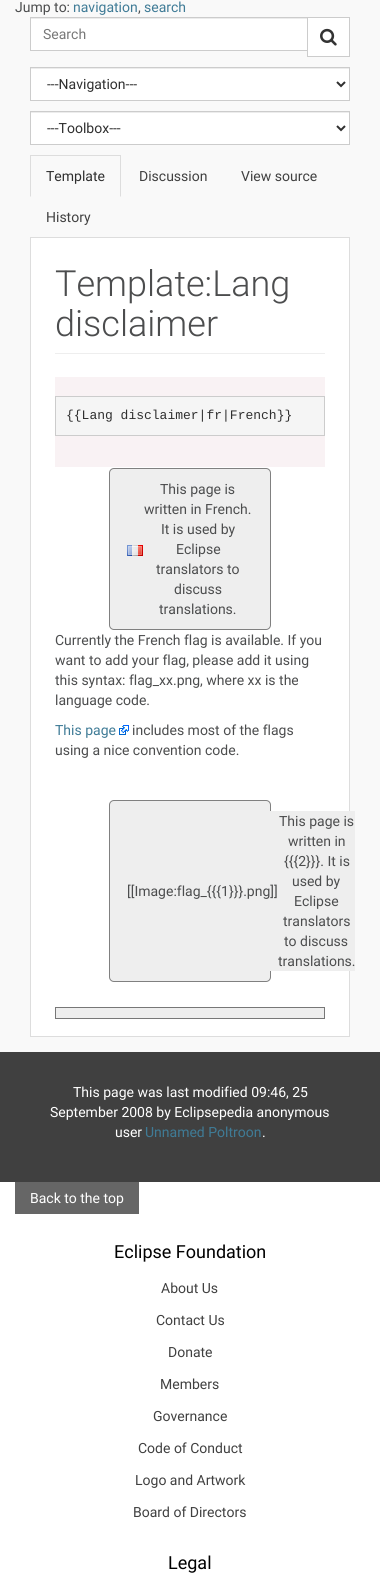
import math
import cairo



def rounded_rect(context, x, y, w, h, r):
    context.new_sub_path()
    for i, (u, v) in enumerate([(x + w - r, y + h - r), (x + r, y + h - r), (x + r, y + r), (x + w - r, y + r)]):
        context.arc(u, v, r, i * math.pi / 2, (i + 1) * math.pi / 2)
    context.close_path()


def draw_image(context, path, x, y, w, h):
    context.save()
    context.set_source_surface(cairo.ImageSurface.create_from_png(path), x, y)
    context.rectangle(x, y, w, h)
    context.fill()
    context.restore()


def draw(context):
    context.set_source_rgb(249 / 255, 249 / 255, 249 / 255)
    context.paint()
    context.set_source_rgb(1, 1, 1)
    context.rectangle(31, 19, 276, 31)
    context.fill()
    context.set_source_rgb(236 / 255, 236 / 255, 236 / 255)
    context.rectangle(31, 18, 276, 1)
    context.fill()
    context.rectangle(30.5, 17.5, 277, 33)
    context.set_source_rgb(204 / 255, 204 / 255, 204 / 255)
    context.set_line_width(1)
    context.stroke()
    context.set_source_rgb(1, 1, 1)
    context.rectangle(307.5, 17.5, 42, 39)
    context.fill_preserve()
    context.set_source_rgb(204 / 255, 204 / 255, 204 / 255)
    context.stroke()
    draw_image(context, "images/1.png", 320, 28, 17, 18)
    context.set_source_rgb(1, 1, 1)
    context.rectangle(31, 69, 318, 31)
    context.fill()
    context.set_source_rgb(236 / 255, 236 / 255, 236 / 255)
    context.rectangle(31, 68, 318, 1)
    context.fill()
    context.rectangle(30.5, 67.5, 319, 33)
    context.set_source_rgb(204 / 255, 204 / 255, 204 / 255)
    context.stroke()
    context.new_path()
    context.move_to(337, 82)
    context.line_to(341, 86)
    context.line_to(345, 82)
    context.set_source_rgb(47 / 255, 47 / 255, 47 / 255)
    context.set_line_width(2)
    context.stroke()
    context.set_source_rgb(1, 1, 1)
    context.rectangle(31, 113, 318, 31)
    context.fill()
    context.set_source_rgb(236 / 255, 236 / 255, 236 / 255)
    context.rectangle(31, 112, 318, 1)
    context.fill()
    context.rectangle(30.5, 111.5, 319, 33)
    context.set_source_rgb(204 / 255, 204 / 255, 204 / 255)
    context.set_line_width(1)
    context.stroke()
    context.new_path()
    context.move_to(337, 126)
    context.line_to(341, 130)
    context.line_to(345, 126)
    context.set_source_rgb(47 / 255, 47 / 255, 47 / 255)
    context.set_line_width(2)
    context.stroke()
    context.set_source_rgb(221 / 255, 221 / 255, 221 / 255)
    context.rectangle(30, 237, 320, 1)
    context.fill()
    context.rectangle(30, 155, 91, 1)
    context.fill()
    context.new_path()
    context.move_to(121, 155)
    context.line_to(121, 197)
    context.line_to(120, 196)
    context.line_to(120, 156)
    context.close_path()
    context.fill()
    context.new_path()
    context.move_to(30, 197)
    context.line_to(30, 155)
    context.line_to(31, 156)
    context.line_to(31, 196)
    context.close_path()
    context.fill()
    context.set_source_rgb(1, 1, 1)
    context.rectangle(31, 238, 318, 798)
    context.fill()
    context.set_source_rgb(221 / 255, 221 / 255, 221 / 255)
    context.rectangle(349, 238, 1, 799)
    context.fill()
    context.rectangle(30, 1036, 320, 1)
    context.fill()
    context.rectangle(30, 238, 1, 799)
    context.fill()
    context.set_source_rgb(238 / 255, 238 / 255, 238 / 255)
    context.rectangle(55, 353, 270, 1)
    context.fill()
    context.set_source_rgb(249 / 255, 242 / 255, 244 / 255)
    context.rectangle(55, 377, 270, 90)
    context.fill()
    context.set_source_rgb(245 / 255, 245 / 255, 245 / 255)
    context.rectangle(55.5, 396.5, 269, 39)
    context.fill_preserve()
    context.set_source_rgb(204 / 255, 204 / 255, 204 / 255)
    context.set_line_width(1)
    context.stroke()
    context.set_source_rgb(238 / 255, 238 / 255, 238 / 255)
    rounded_rect(context, 109.5, 468.5, 161, 161, 4.5)
    context.fill_preserve()
    context.set_source_rgb(128 / 255, 128 / 255, 128 / 255)
    context.stroke()
    draw_image(context, "images/2.png", 127, 545, 16, 11)
    draw_image(context, "images/3.png", 119, 725, 10, 10)
    context.set_source_rgb(238 / 255, 238 / 255, 238 / 255)
    rounded_rect(context, 109.5, 800.5, 161, 181, 4.5)
    context.fill_preserve()
    context.set_source_rgb(128 / 255, 128 / 255, 128 / 255)
    context.stroke()
    context.set_source_rgb(238 / 255, 238 / 255, 238 / 255)
    context.rectangle(270, 811, 85, 160)
    context.fill()
    context.rectangle(55.5, 1007.5, 269, 11)
    context.fill_preserve()
    context.set_source_rgb(119 / 255, 119 / 255, 119 / 255)
    context.stroke()
    context.set_source_rgb(64 / 255, 64 / 255, 64 / 255)
    context.rectangle(0, 1052, 380, 130)
    context.fill()
    context.set_source_rgb(1, 1, 1)
    context.rectangle(0, 1182, 380, 402)
    context.fill()
    context.set_source_rgb(102 / 255, 102 / 255, 102 / 255)
    context.rectangle(15, 1182, 124, 32)
    context.fill()
    context.select_font_face("Roboto")
    context.set_font_size(14)
    context.set_source_rgb(76 / 255, 77 / 255, 78 / 255)
    context.move_to(15, 12)
    context.show_text("Jump to:")
    context.set_source_rgb(63 / 255, 123 / 255, 150 / 255)
    context.move_to(73, 12)
    context.show_text("navigation")
    context.set_source_rgb(76 / 255, 77 / 255, 78 / 255)
    context.move_to(138, 12)
    context.show_text(",")
    context.set_source_rgb(63 / 255, 123 / 255, 150 / 255)
    context.move_to(144, 12)
    context.show_text("search")
    context.set_source_rgb(119 / 255, 119 / 255, 119 / 255)
    context.move_to(43, 39)
    context.show_text("Search")
    context.set_source_rgb(47 / 255, 47 / 255, 47 / 255)
    context.move_to(47, 89)
    context.show_text("---Navigation---")
    context.move_to(47, 133)
    context.show_text("---Toolbox---")
    context.move_to(46, 181)
    context.show_text("Template")
    context.set_source_rgb(64 / 255, 64 / 255, 64 / 255)
    context.move_to(139, 181)
    context.show_text("Discussion")
    context.move_to(241, 181)
    context.show_text("View source")
    context.move_to(46, 222)
    context.show_text("History")
    context.select_font_face("Roboto Light")
    context.set_font_size(36)
    context.set_source_rgb(76 / 255, 77 / 255, 78 / 255)
    context.move_to(55, 296)
    context.show_text("Template:Lang")
    context.move_to(55, 336)
    context.show_text("disclaimer")
    context.select_font_face("Liberation Mono")
    context.set_font_size(13)
    context.set_source_rgb(47 / 255, 47 / 255, 47 / 255)
    context.move_to(66, 419)
    context.show_text("{{Lang disclaimer|fr|French}}")
    context.select_font_face("Roboto")
    context.set_font_size(14)
    context.set_source_rgb(76 / 255, 77 / 255, 78 / 255)
    context.move_to(160, 494)
    context.show_text("This page is")
    context.move_to(144, 514)
    context.show_text("written in French.")
    context.move_to(161, 534)
    context.show_text("It is used by")
    context.move_to(176, 554)
    context.show_text("Eclipse")
    context.move_to(156, 574)
    context.show_text("translators to")
    context.move_to(174, 594)
    context.show_text("discuss")
    context.move_to(159, 614)
    context.show_text("translations.")
    context.move_to(55, 645)
    context.show_text("Currently the French flag is available. If you")
    context.move_to(55, 665)
    context.show_text("want to add your flag, please add it using")
    context.move_to(55, 685)
    context.show_text("this syntax: flag_xx.png, where xx is the")
    context.move_to(55, 705)
    context.show_text("language code.")
    context.set_source_rgb(63 / 255, 123 / 255, 150 / 255)
    context.move_to(55, 735)
    context.show_text("This page")
    context.set_source_rgb(76 / 255, 77 / 255, 78 / 255)
    context.move_to(132, 735)
    context.show_text("includes most of the flags")
    context.move_to(55, 755)
    context.show_text("using a nice convention code.")
    context.move_to(127, 896)
    context.show_text("[[Image:flag_{{{1}}}.png]]")
    context.move_to(279, 826)
    context.show_text("This page is")
    context.move_to(288, 846)
    context.show_text("written in")
    context.move_to(284, 866)
    context.show_text("{{{2}}}. It is")
    context.move_to(292, 886)
    context.show_text("used by")
    context.move_to(294, 906)
    context.show_text("Eclipse")
    context.move_to(283, 926)
    context.show_text("translators")
    context.move_to(284, 946)
    context.show_text("to discuss")
    context.move_to(278, 966)
    context.show_text("translations.")
    context.set_source_rgb(1, 1, 1)
    context.move_to(73, 1097)
    context.show_text("This page was last modified 09:46, 25")
    context.move_to(50, 1117)
    context.show_text("September 2008 by Eclipsepedia anonymous")
    context.move_to(115, 1137)
    context.show_text("user")
    context.set_source_rgb(63 / 255, 123 / 255, 150 / 255)
    context.move_to(145, 1137)
    context.show_text("Unnamed Poltroon")
    context.set_source_rgb(1, 1, 1)
    context.move_to(262, 1137)
    context.show_text(".")
    context.move_to(30, 1203)
    context.show_text("Back to the top")
    context.set_font_size(18)
    context.set_source_rgb(0, 0, 0)
    context.move_to(114, 1258)
    context.show_text("Eclipse Foundation")
    context.set_font_size(14)
    context.set_source_rgb(64 / 255, 64 / 255, 64 / 255)
    context.move_to(161, 1293)
    context.show_text("About Us")
    context.move_to(156, 1325)
    context.show_text("Contact Us")
    context.move_to(168, 1357)
    context.show_text("Donate")
    context.move_to(160, 1389)
    context.show_text("Members")
    context.move_to(153, 1421)
    context.show_text("Governance")
    context.move_to(138, 1453)
    context.show_text("Code of Conduct")
    context.move_to(135, 1485)
    context.show_text("Logo and Artwork")
    context.move_to(133, 1517)
    context.show_text("Board of Directors")
    context.set_font_size(18)
    context.set_source_rgb(0, 0, 0)
    context.move_to(168, 1569)
    context.show_text("Legal")


surface = cairo.ImageSurface(cairo.Format.RGB24, 380, 1584)
context = cairo.Context(surface)
options = cairo.FontOptions()
options.set_hint_metrics(cairo.HintMetrics.OFF)
options.set_hint_style(cairo.HintStyle.NONE)
context.set_font_options(options)
context.set_miter_limit(4)
draw(context)
surface.write_to_png("out.png")
